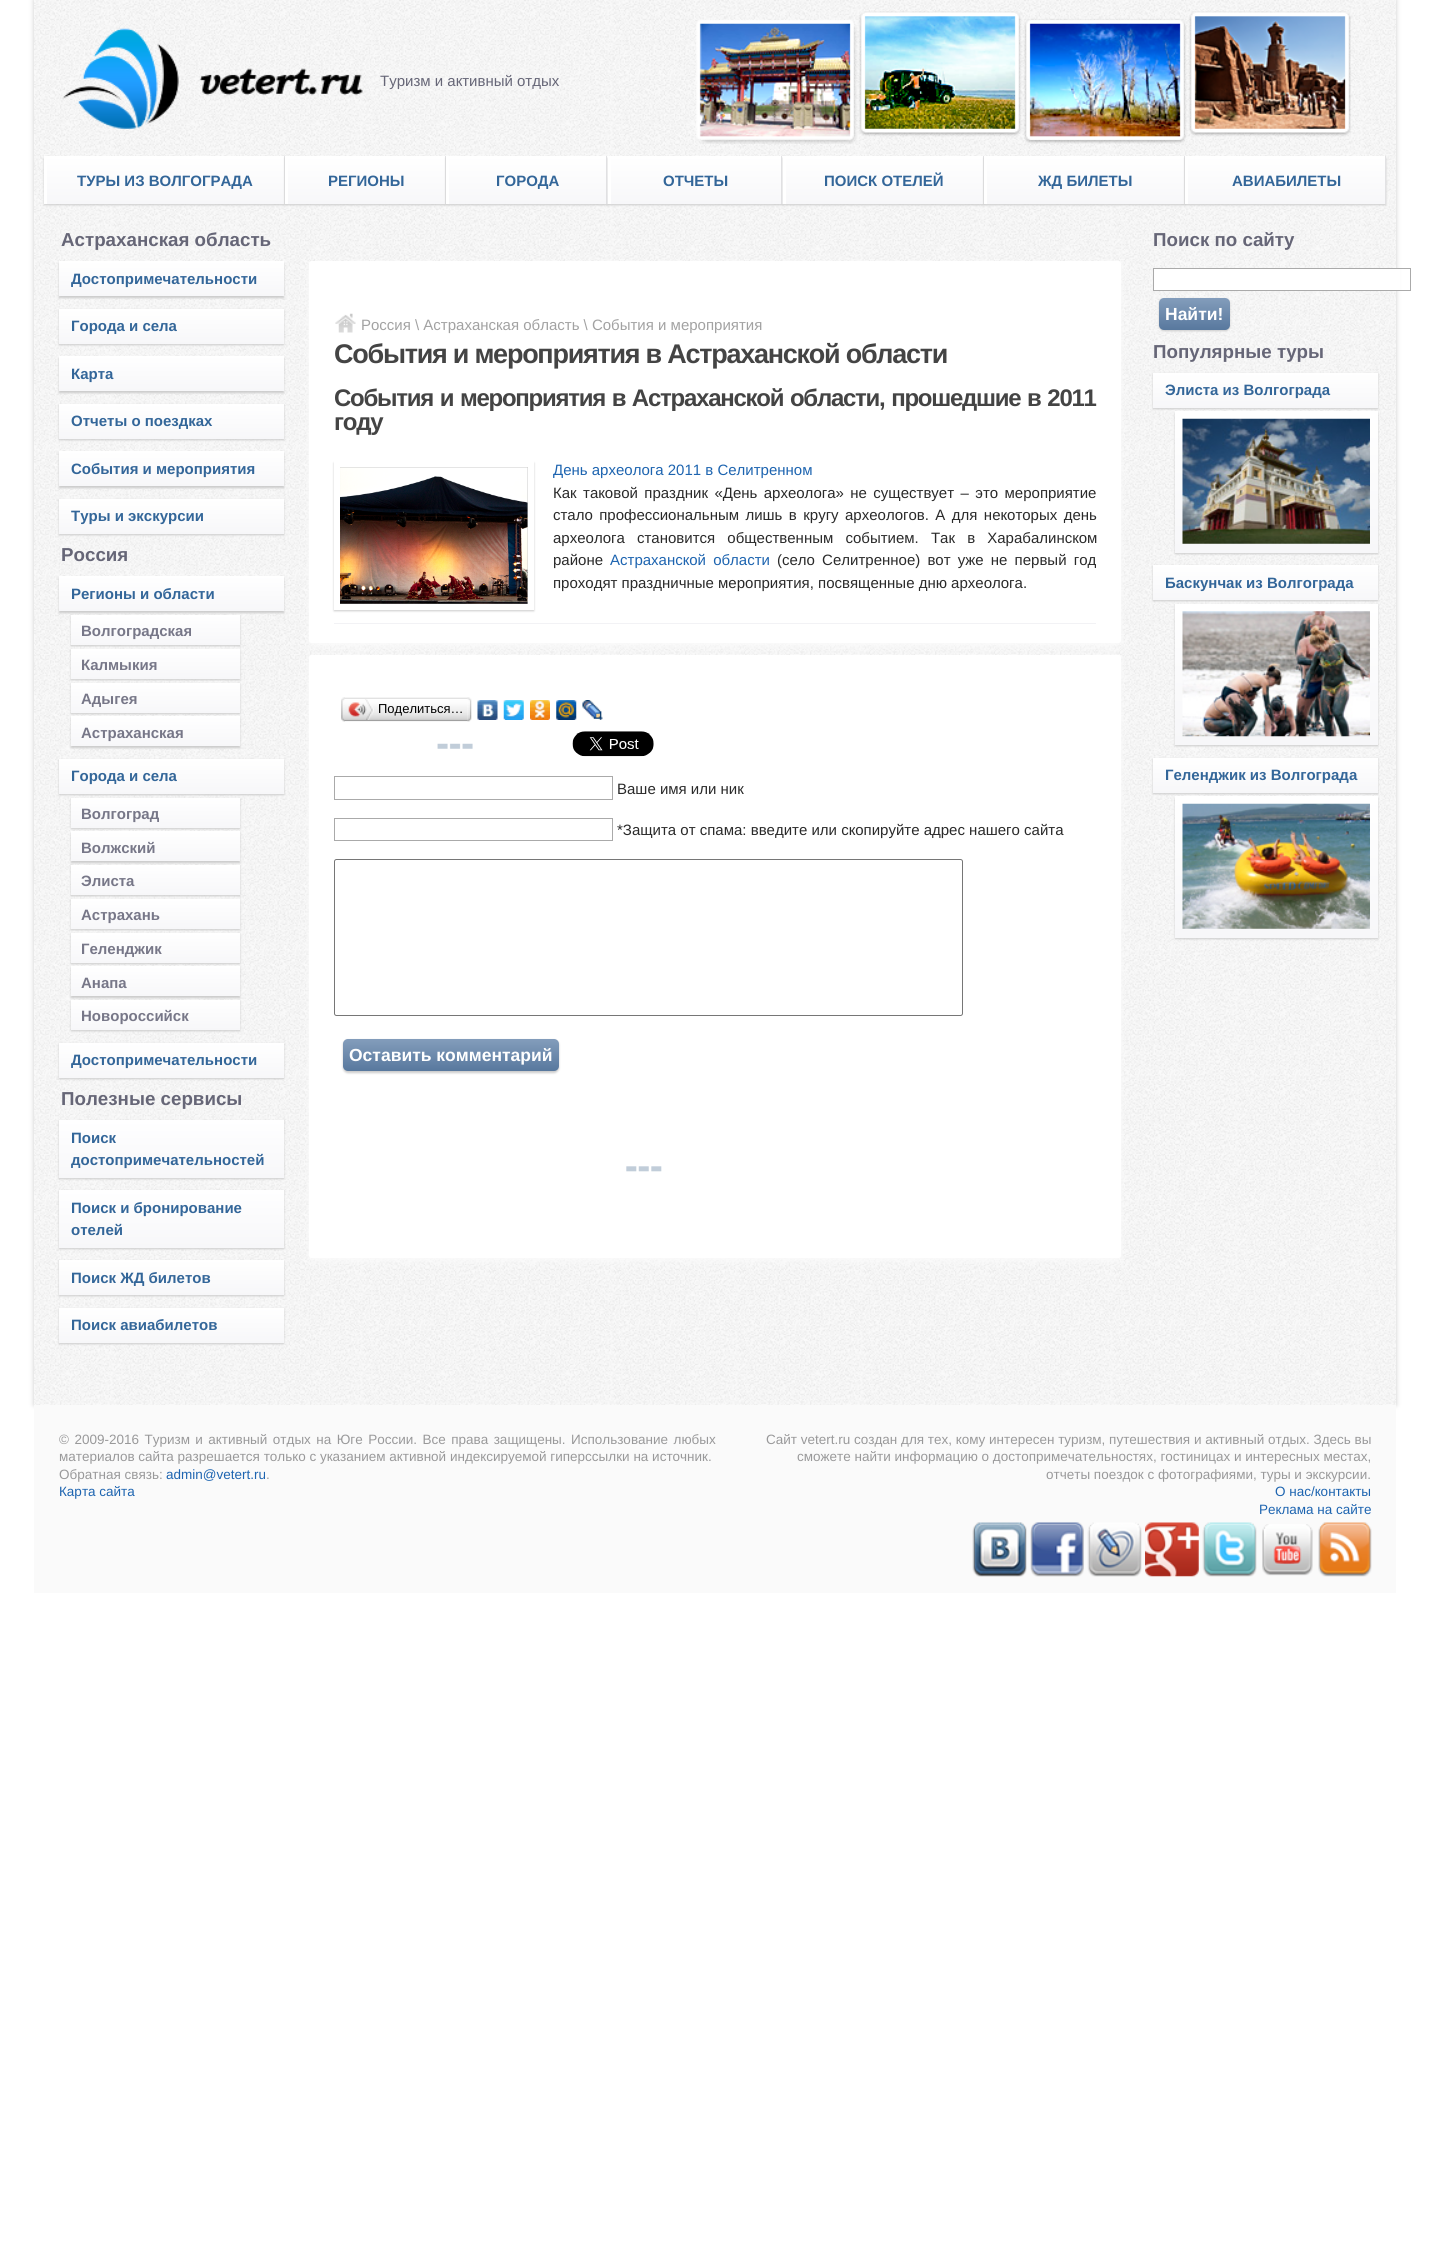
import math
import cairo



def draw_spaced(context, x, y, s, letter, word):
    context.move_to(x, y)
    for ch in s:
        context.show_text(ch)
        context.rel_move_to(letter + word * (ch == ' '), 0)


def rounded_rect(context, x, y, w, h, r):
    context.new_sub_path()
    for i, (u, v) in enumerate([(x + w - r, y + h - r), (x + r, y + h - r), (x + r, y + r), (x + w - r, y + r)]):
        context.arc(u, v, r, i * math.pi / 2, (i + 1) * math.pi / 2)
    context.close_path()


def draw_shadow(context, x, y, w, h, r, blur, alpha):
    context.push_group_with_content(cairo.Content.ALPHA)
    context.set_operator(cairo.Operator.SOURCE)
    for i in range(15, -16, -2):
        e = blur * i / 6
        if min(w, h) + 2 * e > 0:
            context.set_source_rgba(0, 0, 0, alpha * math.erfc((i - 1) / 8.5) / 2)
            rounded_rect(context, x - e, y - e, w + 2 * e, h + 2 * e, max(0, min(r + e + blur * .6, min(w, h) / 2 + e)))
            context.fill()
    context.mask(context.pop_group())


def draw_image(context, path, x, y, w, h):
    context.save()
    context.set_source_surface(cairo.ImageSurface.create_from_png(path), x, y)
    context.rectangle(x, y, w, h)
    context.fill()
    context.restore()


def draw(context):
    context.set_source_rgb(1, 1, 1)
    context.paint()
    context.set_source_rgb(204 / 255, 204 / 255, 204 / 255)
    draw_shadow(context, 34, 0, 1362, 1405, 0, 2.5, 1)
    context.set_source_rgb(250 / 255, 250 / 255, 250 / 255)
    context.rectangle(34, 0, 1362, 1593)
    context.fill()
    draw_image(context, "images/1.png", 34, 0, 1362, 1405)
    draw_image(context, "images/2.png", 62, 28, 301, 101)
    draw_image(context, "images/3.png", 696, 11, 655, 133)
    context.set_source_rgb(204 / 255, 204 / 255, 204 / 255)
    draw_shadow(context, 44, 158, 241, 47, 0, 1, 1)
    gradient = cairo.LinearGradient(165, 156, 165, 204)
    gradient.add_color_stop_rgba(0, 1, 1, 1, 1)
    gradient.add_color_stop_rgba(1, 247 / 255, 247 / 255, 249 / 255, 1)
    context.set_source(gradient)
    context.rectangle(47, 156, 237, 48)
    context.fill()
    context.set_source_rgb(226 / 255, 226 / 255, 228 / 255)
    context.rectangle(284, 156, 1, 48)
    context.fill()
    context.set_source_rgb(1, 1, 1)
    context.rectangle(44, 156, 3, 48)
    context.fill()
    context.set_source_rgb(204 / 255, 204 / 255, 204 / 255)
    draw_shadow(context, 285, 158, 161, 47, 0, 1, 1)
    gradient = cairo.LinearGradient(366, 156, 366, 204)
    gradient.add_color_stop_rgba(0, 1, 1, 1, 1)
    gradient.add_color_stop_rgba(1, 247 / 255, 247 / 255, 249 / 255, 1)
    context.set_source(gradient)
    context.rectangle(288, 156, 157, 48)
    context.fill()
    context.set_source_rgb(226 / 255, 226 / 255, 228 / 255)
    context.rectangle(445, 156, 1, 48)
    context.fill()
    context.set_source_rgb(1, 1, 1)
    context.rectangle(285, 156, 3, 48)
    context.fill()
    context.set_source_rgb(204 / 255, 204 / 255, 204 / 255)
    draw_shadow(context, 446, 158, 162, 47, 0, 1, 1)
    gradient = cairo.LinearGradient(528, 156, 528, 204)
    gradient.add_color_stop_rgba(0, 1, 1, 1, 1)
    gradient.add_color_stop_rgba(1, 247 / 255, 247 / 255, 249 / 255, 1)
    context.set_source(gradient)
    context.rectangle(449, 156, 159, 48)
    context.fill()
    context.set_source_rgb(226 / 255, 226 / 255, 228 / 255)
    context.rectangle(606, 156, 1, 48)
    context.fill()
    context.set_source_rgb(1, 1, 1)
    context.rectangle(446, 156, 3, 48)
    context.fill()
    context.set_source_rgb(204 / 255, 204 / 255, 204 / 255)
    draw_shadow(context, 608, 158, 175, 47, 0, 1, 1)
    gradient = cairo.LinearGradient(696, 156, 696, 204)
    gradient.add_color_stop_rgba(0, 1, 1, 1, 1)
    gradient.add_color_stop_rgba(1, 247 / 255, 247 / 255, 249 / 255, 1)
    context.set_source(gradient)
    context.rectangle(611, 156, 172, 48)
    context.fill()
    context.set_source_rgb(226 / 255, 226 / 255, 228 / 255)
    context.rectangle(781, 156, 1, 48)
    context.fill()
    context.set_source_rgb(1, 1, 1)
    context.rectangle(608, 156, 3, 48)
    context.fill()
    context.set_source_rgb(204 / 255, 204 / 255, 204 / 255)
    draw_shadow(context, 783, 158, 201, 47, 0, 1, 1)
    gradient = cairo.LinearGradient(884, 156, 884, 204)
    gradient.add_color_stop_rgba(0, 1, 1, 1, 1)
    gradient.add_color_stop_rgba(1, 247 / 255, 247 / 255, 249 / 255, 1)
    context.set_source(gradient)
    context.rectangle(786, 156, 197, 48)
    context.fill()
    context.set_source_rgb(226 / 255, 226 / 255, 228 / 255)
    context.rectangle(983, 156, 1, 48)
    context.fill()
    context.set_source_rgb(1, 1, 1)
    context.rectangle(783, 156, 3, 48)
    context.fill()
    context.set_source_rgb(204 / 255, 204 / 255, 204 / 255)
    draw_shadow(context, 984, 158, 201, 47, 0, 1, 1)
    gradient = cairo.LinearGradient(1085, 156, 1085, 204)
    gradient.add_color_stop_rgba(0, 1, 1, 1, 1)
    gradient.add_color_stop_rgba(1, 247 / 255, 247 / 255, 249 / 255, 1)
    context.set_source(gradient)
    context.rectangle(987, 156, 197, 48)
    context.fill()
    context.set_source_rgb(226 / 255, 226 / 255, 228 / 255)
    context.rectangle(1184, 156, 1, 48)
    context.fill()
    context.set_source_rgb(1, 1, 1)
    context.rectangle(984, 156, 3, 48)
    context.fill()
    context.set_source_rgb(204 / 255, 204 / 255, 204 / 255)
    draw_shadow(context, 1185, 158, 201, 47, 0, 1, 1)
    gradient = cairo.LinearGradient(1286, 156, 1286, 204)
    gradient.add_color_stop_rgba(0, 1, 1, 1, 1)
    gradient.add_color_stop_rgba(1, 247 / 255, 247 / 255, 249 / 255, 1)
    context.set_source(gradient)
    context.rectangle(1188, 156, 197, 48)
    context.fill()
    context.set_source_rgb(226 / 255, 226 / 255, 228 / 255)
    context.rectangle(1385, 156, 1, 48)
    context.fill()
    context.set_source_rgb(1, 1, 1)
    context.rectangle(1185, 156, 3, 48)
    context.fill()
    context.set_source_rgb(204 / 255, 204 / 255, 204 / 255)
    draw_shadow(context, 59, 263, 225, 35, 0, 1, 1)
    gradient = cairo.LinearGradient(171, 261, 171, 296)
    gradient.add_color_stop_rgba(0, 1, 1, 1, 1)
    gradient.add_color_stop_rgba(1, 247 / 255, 247 / 255, 249 / 255, 1)
    context.set_source(gradient)
    context.rectangle(59, 261, 225, 35)
    context.fill()
    context.set_source_rgb(204 / 255, 204 / 255, 204 / 255)
    draw_shadow(context, 59, 310, 225, 35, 0, 1, 1)
    gradient = cairo.LinearGradient(171, 309, 171, 344)
    gradient.add_color_stop_rgba(0, 1, 1, 1, 1)
    gradient.add_color_stop_rgba(1, 247 / 255, 247 / 255, 249 / 255, 1)
    context.set_source(gradient)
    context.rectangle(59, 309, 225, 35)
    context.fill()
    context.set_source_rgb(204 / 255, 204 / 255, 204 / 255)
    draw_shadow(context, 59, 358, 225, 35, 0, 1, 1)
    gradient = cairo.LinearGradient(171, 356, 171, 391)
    gradient.add_color_stop_rgba(0, 1, 1, 1, 1)
    gradient.add_color_stop_rgba(1, 247 / 255, 247 / 255, 249 / 255, 1)
    context.set_source(gradient)
    context.rectangle(59, 356, 225, 35)
    context.fill()
    context.set_source_rgb(204 / 255, 204 / 255, 204 / 255)
    draw_shadow(context, 59, 405, 225, 35, 0, 1, 1)
    gradient = cairo.LinearGradient(171, 404, 171, 439)
    gradient.add_color_stop_rgba(0, 1, 1, 1, 1)
    gradient.add_color_stop_rgba(1, 247 / 255, 247 / 255, 249 / 255, 1)
    context.set_source(gradient)
    context.rectangle(59, 404, 225, 35)
    context.fill()
    context.set_source_rgb(204 / 255, 204 / 255, 204 / 255)
    draw_shadow(context, 59, 453, 225, 35, 0, 1, 1)
    gradient = cairo.LinearGradient(171, 451, 171, 486)
    gradient.add_color_stop_rgba(0, 1, 1, 1, 1)
    gradient.add_color_stop_rgba(1, 247 / 255, 247 / 255, 249 / 255, 1)
    context.set_source(gradient)
    context.rectangle(59, 451, 225, 35)
    context.fill()
    context.set_source_rgb(204 / 255, 204 / 255, 204 / 255)
    draw_shadow(context, 59, 500, 225, 35, 0, 1, 1)
    gradient = cairo.LinearGradient(171, 499, 171, 534)
    gradient.add_color_stop_rgba(0, 1, 1, 1, 1)
    gradient.add_color_stop_rgba(1, 247 / 255, 247 / 255, 249 / 255, 1)
    context.set_source(gradient)
    context.rectangle(59, 499, 225, 35)
    context.fill()
    context.set_source_rgb(204 / 255, 204 / 255, 204 / 255)
    draw_shadow(context, 59, 578, 225, 35, 0, 1, 1)
    gradient = cairo.LinearGradient(171, 576, 171, 611)
    gradient.add_color_stop_rgba(0, 1, 1, 1, 1)
    gradient.add_color_stop_rgba(1, 247 / 255, 247 / 255, 249 / 255, 1)
    context.set_source(gradient)
    context.rectangle(59, 576, 225, 35)
    context.fill()
    context.set_source_rgb(204 / 255, 204 / 255, 204 / 255)
    draw_shadow(context, 71, 616, 169, 30, 0, 1, 1)
    gradient = cairo.LinearGradient(156, 615, 156, 645)
    gradient.add_color_stop_rgba(0, 1, 1, 1, 1)
    gradient.add_color_stop_rgba(1, 247 / 255, 247 / 255, 249 / 255, 1)
    context.set_source(gradient)
    context.rectangle(71, 615, 169, 30)
    context.fill()
    context.set_source_rgb(204 / 255, 204 / 255, 204 / 255)
    draw_shadow(context, 71, 650, 169, 30, 0, 1, 1)
    gradient = cairo.LinearGradient(156, 649, 156, 679)
    gradient.add_color_stop_rgba(0, 1, 1, 1, 1)
    gradient.add_color_stop_rgba(1, 247 / 255, 247 / 255, 249 / 255, 1)
    context.set_source(gradient)
    context.rectangle(71, 649, 169, 30)
    context.fill()
    context.set_source_rgb(204 / 255, 204 / 255, 204 / 255)
    draw_shadow(context, 71, 684, 169, 30, 0, 1, 1)
    gradient = cairo.LinearGradient(156, 683, 156, 713)
    gradient.add_color_stop_rgba(0, 1, 1, 1, 1)
    gradient.add_color_stop_rgba(1, 247 / 255, 247 / 255, 249 / 255, 1)
    context.set_source(gradient)
    context.rectangle(71, 683, 169, 30)
    context.fill()
    context.set_source_rgb(204 / 255, 204 / 255, 204 / 255)
    draw_shadow(context, 71, 718, 169, 30, 0, 1, 1)
    gradient = cairo.LinearGradient(156, 716, 156, 746)
    gradient.add_color_stop_rgba(0, 1, 1, 1, 1)
    gradient.add_color_stop_rgba(1, 247 / 255, 247 / 255, 249 / 255, 1)
    context.set_source(gradient)
    context.rectangle(71, 716, 169, 30)
    context.fill()
    context.set_source_rgb(204 / 255, 204 / 255, 204 / 255)
    draw_shadow(context, 59, 760, 225, 35, 0, 1, 1)
    gradient = cairo.LinearGradient(171, 759, 171, 794)
    gradient.add_color_stop_rgba(0, 1, 1, 1, 1)
    gradient.add_color_stop_rgba(1, 247 / 255, 247 / 255, 249 / 255, 1)
    context.set_source(gradient)
    context.rectangle(59, 759, 225, 35)
    context.fill()
    context.set_source_rgb(204 / 255, 204 / 255, 204 / 255)
    draw_shadow(context, 71, 799, 169, 30, 0, 1, 1)
    gradient = cairo.LinearGradient(156, 798, 156, 828)
    gradient.add_color_stop_rgba(0, 1, 1, 1, 1)
    gradient.add_color_stop_rgba(1, 247 / 255, 247 / 255, 249 / 255, 1)
    context.set_source(gradient)
    context.rectangle(71, 798, 169, 30)
    context.fill()
    context.set_source_rgb(204 / 255, 204 / 255, 204 / 255)
    draw_shadow(context, 71, 833, 169, 30, 0, 1, 1)
    gradient = cairo.LinearGradient(156, 831, 156, 861)
    gradient.add_color_stop_rgba(0, 1, 1, 1, 1)
    gradient.add_color_stop_rgba(1, 247 / 255, 247 / 255, 249 / 255, 1)
    context.set_source(gradient)
    context.rectangle(71, 831, 169, 30)
    context.fill()
    context.set_source_rgb(204 / 255, 204 / 255, 204 / 255)
    draw_shadow(context, 71, 866, 169, 30, 0, 1, 1)
    gradient = cairo.LinearGradient(156, 865, 156, 895)
    gradient.add_color_stop_rgba(0, 1, 1, 1, 1)
    gradient.add_color_stop_rgba(1, 247 / 255, 247 / 255, 249 / 255, 1)
    context.set_source(gradient)
    context.rectangle(71, 865, 169, 30)
    context.fill()
    context.set_source_rgb(204 / 255, 204 / 255, 204 / 255)
    draw_shadow(context, 71, 900, 169, 30, 0, 1, 1)
    gradient = cairo.LinearGradient(156, 899, 156, 929)
    gradient.add_color_stop_rgba(0, 1, 1, 1, 1)
    gradient.add_color_stop_rgba(1, 247 / 255, 247 / 255, 249 / 255, 1)
    context.set_source(gradient)
    context.rectangle(71, 899, 169, 30)
    context.fill()
    context.set_source_rgb(204 / 255, 204 / 255, 204 / 255)
    draw_shadow(context, 71, 934, 169, 30, 0, 1, 1)
    gradient = cairo.LinearGradient(156, 933, 156, 963)
    gradient.add_color_stop_rgba(0, 1, 1, 1, 1)
    gradient.add_color_stop_rgba(1, 247 / 255, 247 / 255, 249 / 255, 1)
    context.set_source(gradient)
    context.rectangle(71, 933, 169, 30)
    context.fill()
    context.set_source_rgb(204 / 255, 204 / 255, 204 / 255)
    draw_shadow(context, 71, 968, 169, 30, 0, 1, 1)
    gradient = cairo.LinearGradient(156, 966, 156, 996)
    gradient.add_color_stop_rgba(0, 1, 1, 1, 1)
    gradient.add_color_stop_rgba(1, 247 / 255, 247 / 255, 249 / 255, 1)
    context.set_source(gradient)
    context.rectangle(71, 966, 169, 30)
    context.fill()
    context.set_source_rgb(204 / 255, 204 / 255, 204 / 255)
    draw_shadow(context, 71, 1001, 169, 30, 0, 1, 1)
    gradient = cairo.LinearGradient(156, 1000, 156, 1030)
    gradient.add_color_stop_rgba(0, 1, 1, 1, 1)
    gradient.add_color_stop_rgba(1, 247 / 255, 247 / 255, 249 / 255, 1)
    context.set_source(gradient)
    context.rectangle(71, 1000, 169, 30)
    context.fill()
    context.set_source_rgb(204 / 255, 204 / 255, 204 / 255)
    draw_shadow(context, 59, 1044, 225, 35, 0, 1, 1)
    gradient = cairo.LinearGradient(171, 1043, 171, 1078)
    gradient.add_color_stop_rgba(0, 1, 1, 1, 1)
    gradient.add_color_stop_rgba(1, 247 / 255, 247 / 255, 249 / 255, 1)
    context.set_source(gradient)
    context.rectangle(59, 1043, 225, 35)
    context.fill()
    context.set_source_rgb(204 / 255, 204 / 255, 204 / 255)
    draw_shadow(context, 59, 1121, 225, 58, 0, 1, 1)
    gradient = cairo.LinearGradient(171, 1120, 171, 1178)
    gradient.add_color_stop_rgba(0, 1, 1, 1, 1)
    gradient.add_color_stop_rgba(1, 247 / 255, 247 / 255, 249 / 255, 1)
    context.set_source(gradient)
    context.rectangle(59, 1120, 225, 58)
    context.fill()
    context.set_source_rgb(204 / 255, 204 / 255, 204 / 255)
    draw_shadow(context, 59, 1191, 225, 58, 0, 1, 1)
    gradient = cairo.LinearGradient(171, 1190, 171, 1248)
    gradient.add_color_stop_rgba(0, 1, 1, 1, 1)
    gradient.add_color_stop_rgba(1, 247 / 255, 247 / 255, 249 / 255, 1)
    context.set_source(gradient)
    context.rectangle(59, 1190, 225, 58)
    context.fill()
    context.set_source_rgb(204 / 255, 204 / 255, 204 / 255)
    draw_shadow(context, 59, 1261, 225, 35, 0, 1, 1)
    gradient = cairo.LinearGradient(171, 1260, 171, 1295)
    gradient.add_color_stop_rgba(0, 1, 1, 1, 1)
    gradient.add_color_stop_rgba(1, 247 / 255, 247 / 255, 249 / 255, 1)
    context.set_source(gradient)
    context.rectangle(59, 1260, 225, 35)
    context.fill()
    context.set_source_rgb(204 / 255, 204 / 255, 204 / 255)
    draw_shadow(context, 59, 1309, 225, 35, 0, 1, 1)
    gradient = cairo.LinearGradient(171, 1308, 171, 1343)
    gradient.add_color_stop_rgba(0, 1, 1, 1, 1)
    gradient.add_color_stop_rgba(1, 247 / 255, 247 / 255, 249 / 255, 1)
    context.set_source(gradient)
    context.rectangle(59, 1308, 225, 35)
    context.fill()
    context.set_source_rgb(250 / 255, 250 / 255, 250 / 255)
    draw_shadow(context, 309, 265, 812, 381, 2.5, 3, 1)
    context.set_source_rgb(1, 1, 1)
    rounded_rect(context, 309, 261, 812, 382, 2.5)
    context.fill()
    draw_image(context, "images/4.png", 335, 313, 21, 20)
    context.set_source_rgb(242 / 255, 242 / 255, 245 / 255)
    context.rectangle(334, 623, 762, 1)
    context.fill()
    context.set_source_rgb(204 / 255, 204 / 255, 204 / 255)
    draw_shadow(context, 334, 463, 200, 148, 0, 1, 1)
    context.rectangle(337, 464, 194, 143)
    context.set_source_rgb(1, 1, 1)
    context.set_line_width(6)
    context.stroke()
    draw_image(context, "images/5.png", 340, 467, 188, 137)
    context.rectangle(1154, 269, 246, 21)
    context.fill()
    context.rectangle(1153.5, 268.5, 257, 22)
    context.set_source_rgb(170 / 255, 170 / 255, 170 / 255)
    context.set_line_width(1)
    context.stroke()
    context.set_source_rgb(204 / 255, 204 / 255, 204 / 255)
    draw_shadow(context, 1159, 299, 71, 32, 5, 1, 1)
    gradient = cairo.LinearGradient(1194, 298, 1194, 330)
    gradient.add_color_stop_rgba(0, 131 / 255, 157 / 255, 187 / 255, 1)
    gradient.add_color_stop_rgba(1, 88 / 255, 120 / 255, 158 / 255, 1)
    context.set_source(gradient)
    rounded_rect(context, 1159, 298, 71, 32, 5)
    context.fill()
    context.set_source_rgb(204 / 255, 204 / 255, 204 / 255)
    draw_shadow(context, 1153, 374, 225, 35, 0, 1, 1)
    gradient = cairo.LinearGradient(1265, 373, 1265, 408)
    gradient.add_color_stop_rgba(0, 1, 1, 1, 1)
    gradient.add_color_stop_rgba(1, 247 / 255, 247 / 255, 249 / 255, 1)
    context.set_source(gradient)
    context.rectangle(1153, 373, 225, 35)
    context.fill()
    context.set_source_rgb(204 / 255, 204 / 255, 204 / 255)
    draw_shadow(context, 1175, 413, 203, 141, 0, 1, 1)
    gradient = cairo.LinearGradient(1276, 411, 1276, 553)
    gradient.add_color_stop_rgba(0, 1, 1, 1, 1)
    gradient.add_color_stop_rgba(1, 247 / 255, 247 / 255, 249 / 255, 1)
    context.set_source(gradient)
    context.rectangle(1175, 411, 203, 142)
    context.fill()
    draw_image(context, "images/6.png", 1182, 418, 188, 126)
    context.set_source_rgb(204 / 255, 204 / 255, 204 / 255)
    draw_shadow(context, 1153, 566, 225, 35, 0, 1, 1)
    gradient = cairo.LinearGradient(1265, 565, 1265, 600)
    gradient.add_color_stop_rgba(0, 1, 1, 1, 1)
    gradient.add_color_stop_rgba(1, 247 / 255, 247 / 255, 249 / 255, 1)
    context.set_source(gradient)
    context.rectangle(1153, 565, 225, 35)
    context.fill()
    context.set_source_rgb(204 / 255, 204 / 255, 204 / 255)
    draw_shadow(context, 1175, 605, 203, 141, 0, 1, 1)
    gradient = cairo.LinearGradient(1276, 604, 1276, 745)
    gradient.add_color_stop_rgba(0, 1, 1, 1, 1)
    gradient.add_color_stop_rgba(1, 247 / 255, 247 / 255, 249 / 255, 1)
    context.set_source(gradient)
    context.rectangle(1175, 604, 203, 141)
    context.fill()
    draw_image(context, "images/7.png", 1182, 611, 188, 126)
    context.set_source_rgb(204 / 255, 204 / 255, 204 / 255)
    draw_shadow(context, 1153, 759, 225, 35, 0, 1, 1)
    gradient = cairo.LinearGradient(1265, 758, 1265, 793)
    gradient.add_color_stop_rgba(0, 1, 1, 1, 1)
    gradient.add_color_stop_rgba(1, 247 / 255, 247 / 255, 249 / 255, 1)
    context.set_source(gradient)
    context.rectangle(1153, 758, 225, 35)
    context.fill()
    context.set_source_rgb(204 / 255, 204 / 255, 204 / 255)
    draw_shadow(context, 1175, 798, 203, 141, 0, 1, 1)
    gradient = cairo.LinearGradient(1276, 796, 1276, 938)
    gradient.add_color_stop_rgba(0, 1, 1, 1, 1)
    gradient.add_color_stop_rgba(1, 247 / 255, 247 / 255, 249 / 255, 1)
    context.set_source(gradient)
    context.rectangle(1175, 796, 203, 142)
    context.fill()
    draw_image(context, "images/8.png", 1182, 803, 188, 126)
    context.set_source_rgb(250 / 255, 250 / 255, 250 / 255)
    draw_shadow(context, 309, 659, 812, 602, 2.5, 3, 1)
    context.set_source_rgb(1, 1, 1)
    rounded_rect(context, 309, 655, 812, 603, 2.5)
    context.fill()
    draw_image(context, "images/9.png", 345, 697, 123, 25)
    draw_image(context, "images/10.png", 341, 697, 4, 25)
    draw_image(context, "images/11.png", 348, 699, 26, 21)
    draw_image(context, "images/12.png", 467, 697, 5, 25)
    draw_image(context, "images/13.png", 477, 700, 21, 20)
    draw_image(context, "images/14.png", 503, 700, 21, 20)
    draw_image(context, "images/15.png", 530, 700, 20, 20)
    draw_image(context, "images/16.png", 556, 700, 21, 20)
    draw_image(context, "images/17.png", 582, 700, 21, 20)
    draw_image(context, "images/18.png", 437, 743, 36, 6)
    draw_image(context, "images/19.png", 572, 731, 82, 26)
    context.rectangle(334.5, 776.5, 278, 23)
    context.set_source_rgb(170 / 255, 170 / 255, 170 / 255)
    context.stroke()
    context.rectangle(334.5, 818.5, 278, 22)
    context.stroke()
    rounded_rect(context, 334.5, 859.5, 628, 156, 2)
    context.set_source_rgb(118 / 255, 118 / 255, 118 / 255)
    context.stroke()
    context.set_source_rgb(204 / 255, 204 / 255, 204 / 255)
    draw_shadow(context, 343, 1040, 216, 33, 5, 1, 1)
    gradient = cairo.LinearGradient(451, 1039, 451, 1071)
    gradient.add_color_stop_rgba(0, 131 / 255, 157 / 255, 187 / 255, 1)
    gradient.add_color_stop_rgba(1, 88 / 255, 120 / 255, 158 / 255, 1)
    context.set_source(gradient)
    rounded_rect(context, 343, 1039, 216, 32, 5)
    context.fill()
    draw_image(context, "images/20.png", 626, 1166, 36, 6)
    draw_image(context, "images/21.png", 972, 1522, 55, 55)
    draw_image(context, "images/22.png", 1030, 1522, 54, 55)
    draw_image(context, "images/23.png", 1087, 1522, 55, 55)
    draw_image(context, "images/24.png", 1145, 1522, 54, 55)
    draw_image(context, "images/25.png", 1202, 1522, 55, 55)
    draw_image(context, "images/26.png", 1262, 1524, 51, 52)
    draw_image(context, "images/27.png", 1318, 1522, 54, 55)
    context.select_font_face("Liberation Sans")
    context.set_font_size(15)
    context.set_source_rgb(102 / 255, 102 / 255, 119 / 255)
    context.move_to(380, 86)
    context.show_text("Туризм и активный отдых")
    context.select_font_face("Liberation Sans", cairo.FontSlant.NORMAL, cairo.FontWeight.BOLD)
    context.set_source_rgb(51 / 255, 102 / 255, 153 / 255)
    context.move_to(77, 186)
    context.show_text("ТУРЫ ИЗ ВОЛГОГРАДА")
    context.move_to(328, 186)
    context.show_text("РЕГИОНЫ")
    context.move_to(496, 186)
    context.show_text("ГОРОДА")
    context.move_to(663, 186)
    context.show_text("ОТЧЕТЫ")
    context.move_to(824, 186)
    context.show_text("ПОИСК ОТЕЛЕЙ")
    context.move_to(1038, 186)
    context.show_text("ЖД БИЛЕТЫ")
    context.move_to(1232, 186)
    context.show_text("АВИАБИЛЕТЫ")
    context.set_font_size(18.75)
    context.set_source_rgb(102 / 255, 102 / 255, 119 / 255)
    context.move_to(61, 246)
    context.show_text("Астраханская область")
    context.set_font_size(15)
    context.set_source_rgb(51 / 255, 102 / 255, 153 / 255)
    context.move_to(71, 284)
    context.show_text("Достопримечательности")
    context.move_to(71, 331)
    context.show_text("Города и села")
    context.move_to(71, 379)
    context.show_text("Карта")
    context.move_to(71, 426)
    context.show_text("Отчеты о поездках")
    context.move_to(71, 474)
    context.show_text("События и мероприятия")
    context.move_to(71, 521)
    context.show_text("Туры и экскурсии")
    context.set_font_size(18.75)
    context.set_source_rgb(102 / 255, 102 / 255, 119 / 255)
    context.move_to(61, 561)
    context.show_text("Россия")
    context.set_font_size(15)
    context.set_source_rgb(51 / 255, 102 / 255, 153 / 255)
    context.move_to(71, 599)
    context.show_text("Регионы и области")
    context.set_source_rgb(119 / 255, 119 / 255, 136 / 255)
    context.move_to(81, 636)
    context.show_text("Волгоградская")
    context.move_to(81, 670)
    context.show_text("Калмыкия")
    context.move_to(81, 704)
    context.show_text("Адыгея")
    context.move_to(81, 738)
    context.show_text("Астраханская")
    context.set_source_rgb(51 / 255, 102 / 255, 153 / 255)
    context.move_to(71, 781)
    context.show_text("Города и села")
    context.set_source_rgb(119 / 255, 119 / 255, 136 / 255)
    context.move_to(81, 819)
    context.show_text("Волгоград")
    context.move_to(81, 853)
    context.show_text("Волжский")
    context.move_to(81, 886)
    context.show_text("Элиста")
    context.move_to(81, 920)
    context.show_text("Астрахань")
    context.move_to(81, 954)
    context.show_text("Геленджик")
    context.move_to(81, 988)
    context.show_text("Анапа")
    context.move_to(81, 1021)
    context.show_text("Новороссийск")
    context.set_source_rgb(51 / 255, 102 / 255, 153 / 255)
    context.move_to(71, 1065)
    context.show_text("Достопримечательности")
    context.set_font_size(18.75)
    context.set_source_rgb(102 / 255, 102 / 255, 119 / 255)
    context.move_to(61, 1105)
    context.show_text("Полезные сервисы")
    context.set_font_size(15)
    context.set_source_rgb(51 / 255, 102 / 255, 153 / 255)
    context.move_to(71, 1143)
    context.show_text("Поиск")
    context.move_to(71, 1165)
    context.show_text("достопримечательностей")
    context.move_to(71, 1213)
    context.show_text("Поиск и бронирование")
    context.move_to(71, 1235)
    context.show_text("отелей")
    context.move_to(71, 1283)
    context.show_text("Поиск ЖД билетов")
    context.move_to(71, 1330)
    context.show_text("Поиск авиабилетов")
    context.select_font_face("Liberation Sans")
    context.set_source_rgb(162 / 255, 162 / 255, 162 / 255)
    context.move_to(361, 330)
    context.show_text("Россия \\ Астраханская область \\ События и мероприятия")
    context.select_font_face("Liberation Sans", cairo.FontSlant.NORMAL, cairo.FontWeight.BOLD)
    context.set_font_size(27)
    context.set_source_rgb(68 / 255, 68 / 255, 68 / 255)
    draw_spaced(context, 334, 363, "События и мероприятия в Астраханской области", -1.25, 0)
    context.set_font_size(24)
    draw_spaced(context, 334, 406, "События и мероприятия в Астраханской области, прошедшие в 2011", -1.25, 1.25)
    draw_spaced(context, 334, 430, "году", -1.25, 0)
    context.select_font_face("Liberation Sans")
    context.set_font_size(15)
    context.set_source_rgb(29 / 255, 100 / 255, 176 / 255)
    context.move_to(553, 475)
    context.show_text("День археолога 2011 в Селитренном")
    context.set_source_rgb(42 / 255, 42 / 255, 42 / 255)
    draw_spaced(context, 553, 498, "Как таковой праздник «День археолога» не существует – это мероприятие", 0, 2.25)
    draw_spaced(context, 553, 520, "стало профессиональным лишь в кругу археологов. А для некоторых день", 0, 2.25)
    draw_spaced(context, 553, 543, "археолога становится общественным событием. Так в Харабалинском", 0, 8)
    context.move_to(553, 565)
    context.show_text("районе")
    context.set_source_rgb(29 / 255, 100 / 255, 176 / 255)
    draw_spaced(context, 610, 565, "Астраханской области", 0, 3)
    context.set_source_rgb(42 / 255, 42 / 255, 42 / 255)
    draw_spaced(context, 777, 565, "(село Селитренное) вот уже не первый год", 0, 3)
    context.move_to(553, 588)
    context.show_text("проходят праздничные мероприятия, посвященные дню археолога.")
    context.select_font_face("Liberation Sans", cairo.FontSlant.NORMAL, cairo.FontWeight.BOLD)
    context.set_font_size(18.75)
    context.set_source_rgb(102 / 255, 102 / 255, 119 / 255)
    context.move_to(1153, 246)
    context.show_text("Поиск по сайту")
    context.set_font_size(17.5)
    context.set_source_rgb(1, 1, 1)
    context.move_to(1165, 320)
    context.show_text("Найти!")
    context.set_font_size(18.75)
    context.set_source_rgb(102 / 255, 102 / 255, 119 / 255)
    context.move_to(1153, 358)
    context.show_text("Популярные туры")
    context.set_font_size(15)
    context.set_source_rgb(51 / 255, 102 / 255, 153 / 255)
    context.move_to(1165, 395)
    context.show_text("Элиста из Волгограда")
    context.move_to(1165, 588)
    context.show_text("Баскунчак из Волгограда")
    context.move_to(1165, 780)
    context.show_text("Геленджик из Волгограда")
    context.select_font_face("Liberation Sans")
    context.set_font_size(13)
    context.set_source_rgb(0, 0, 0)
    context.move_to(378, 713)
    context.show_text("Поделиться…")
    context.set_font_size(15)
    context.set_source_rgb(42 / 255, 42 / 255, 42 / 255)
    context.move_to(617, 794)
    context.show_text("Ваше имя или ник")
    context.move_to(617, 835)
    context.show_text("*Защита от спама: введите или скопируйте адрес нашего сайта")
    context.select_font_face("Liberation Sans", cairo.FontSlant.NORMAL, cairo.FontWeight.BOLD)
    context.set_font_size(17.5)
    context.set_source_rgb(1, 1, 1)
    context.move_to(349, 1061)
    context.show_text("Оставить комментарий")
    context.select_font_face("Liberation Sans")
    context.set_font_size(13.5)
    context.set_source_rgb(153 / 255, 153 / 255, 154 / 255)
    draw_spaced(context, 59, 1444, "© 2009-2016 Туризм и активный отдых на Юге России. Все права защищены. Использование любых", 0, 1.7)
    context.move_to(59, 1461)
    context.show_text("материалов сайта разрешается только с указанием активной индексируемой гиперссылки на источник.")
    context.move_to(59, 1479)
    context.show_text("Обратная связь:")
    context.set_source_rgb(29 / 255, 100 / 255, 176 / 255)
    context.move_to(166, 1479)
    context.show_text("admin@vetert.ru")
    context.set_source_rgb(153 / 255, 153 / 255, 154 / 255)
    context.move_to(266, 1479)
    context.show_text(".")
    context.set_source_rgb(29 / 255, 100 / 255, 176 / 255)
    context.move_to(59, 1496)
    context.show_text("Карта сайта")
    context.set_source_rgb(153 / 255, 153 / 255, 154 / 255)
    context.move_to(766, 1444)
    context.show_text("Cайт vetert.ru создан для тех, кому интересен туризм, путешествия и активный отдых. Здесь вы")
    context.move_to(797, 1461)
    context.show_text("сможете найти информацию о достопримечательностях, гостиницах и интересных местах,")
    context.move_to(1046, 1479)
    context.show_text("отчеты поездок c фотографиями, туры и экскурсии.")
    context.set_source_rgb(29 / 255, 100 / 255, 176 / 255)
    context.move_to(1275, 1496)
    context.show_text("О нас/контакты")
    context.move_to(1259, 1514)
    context.show_text("Реклама на сайте")


surface = cairo.ImageSurface(cairo.Format.RGB24, 1429, 2254)
context = cairo.Context(surface)
options = cairo.FontOptions()
options.set_hint_metrics(cairo.HintMetrics.OFF)
options.set_hint_style(cairo.HintStyle.NONE)
context.set_font_options(options)
context.set_miter_limit(4)
draw(context)
surface.write_to_png("out.png")
